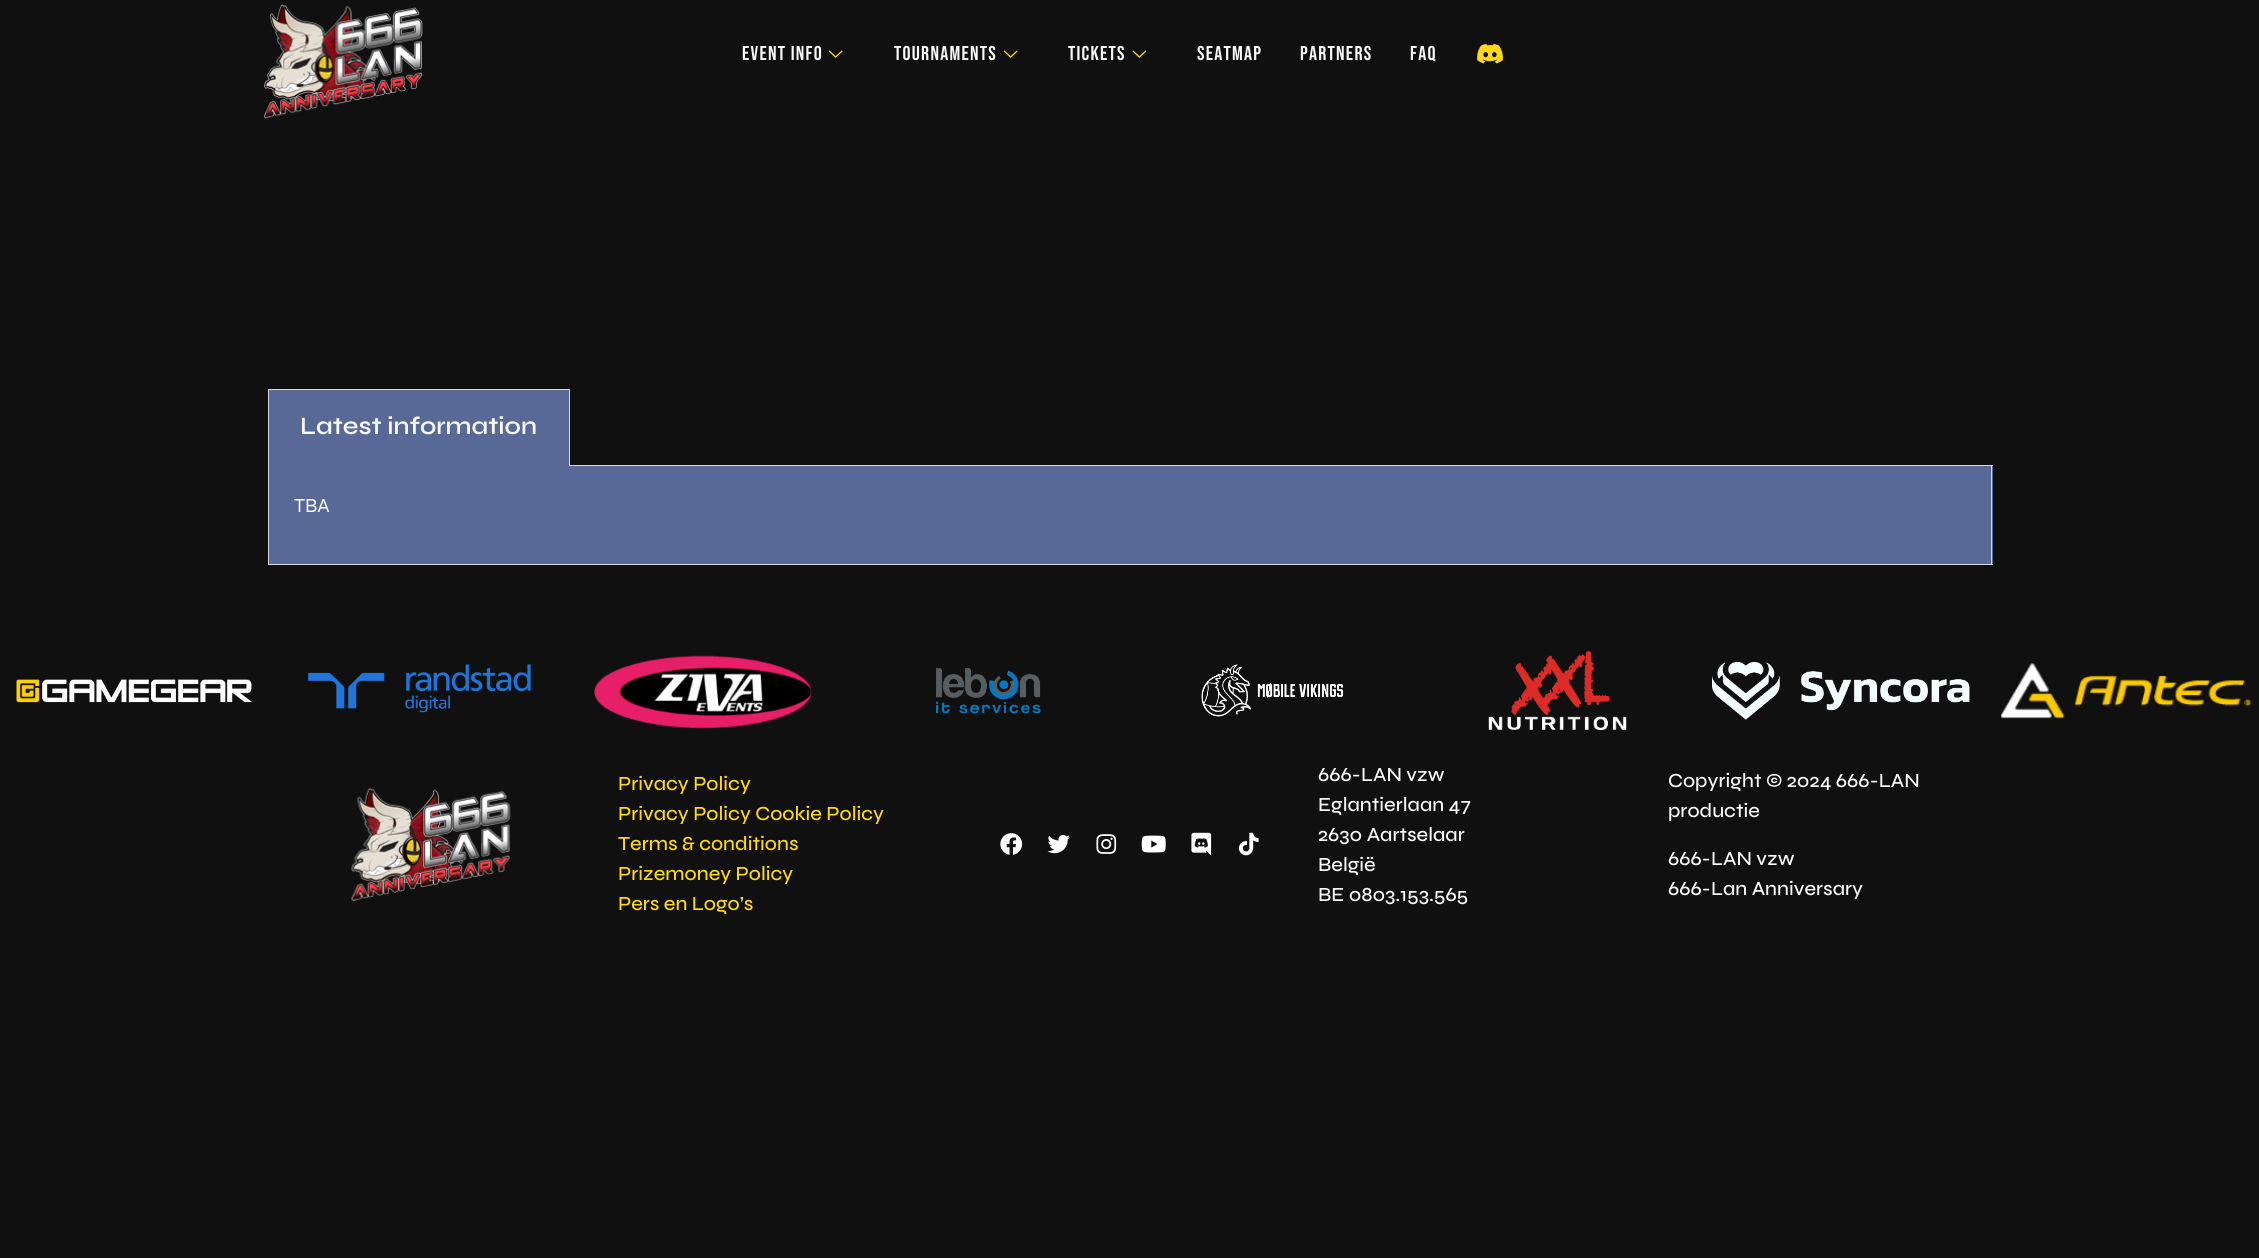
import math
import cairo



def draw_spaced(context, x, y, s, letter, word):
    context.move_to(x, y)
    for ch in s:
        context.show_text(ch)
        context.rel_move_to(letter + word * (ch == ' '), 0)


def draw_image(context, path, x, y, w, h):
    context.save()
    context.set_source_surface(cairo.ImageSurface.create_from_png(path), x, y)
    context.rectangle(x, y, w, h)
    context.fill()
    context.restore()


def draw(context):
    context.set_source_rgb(16 / 255, 16 / 255, 16 / 255)
    context.paint()
    draw_image(context, "images/1.png", 264, 4, 159, 115)
    draw_image(context, "images/2.png", 828, 50, 15, 8)
    draw_image(context, "images/2.png", 1003, 50, 15, 8)
    draw_image(context, "images/3.png", 1132, 50, 15, 8)
    draw_image(context, "images/4.png", 1477, 43, 26, 21)
    context.set_source_rgb(88 / 255, 105 / 255, 152 / 255)
    context.rectangle(269, 390, 300, 76)
    context.fill()
    context.set_source_rgb(213 / 255, 216 / 255, 220 / 255)
    context.rectangle(268, 389, 302, 1)
    context.fill()
    context.rectangle(569, 389, 1, 77)
    context.fill()
    context.rectangle(268, 389, 1, 77)
    context.fill()
    context.rectangle(569, 465, 1424, 1)
    context.fill()
    context.set_source_rgb(88 / 255, 105 / 255, 152 / 255)
    context.rectangle(269, 466, 1724, 98)
    context.fill()
    context.set_source_rgb(213 / 255, 216 / 255, 220 / 255)
    context.rectangle(1991, 466, 1, 99)
    context.fill()
    context.rectangle(268, 564, 1725, 1)
    context.fill()
    context.rectangle(268, 466, 1, 99)
    context.fill()
    draw_image(context, "images/5.png", 16, 679, 236, 24)
    draw_image(context, "images/6.png", 308, 664, 223, 49)
    draw_image(context, "images/7.png", 594, 655, 218, 74)
    draw_image(context, "images/8.png", 935, 668, 106, 46)
    draw_image(context, "images/9.png", 1201, 664, 143, 53)
    draw_image(context, "images/10.png", 1488, 650, 139, 80)
    draw_image(context, "images/11.png", 1712, 662, 258, 58)
    draw_image(context, "images/12.png", 2001, 663, 250, 56)
    draw_image(context, "images/13.png", 351, 787, 160, 114)
    draw_image(context, "images/14.png", 1000, 833, 23, 22)
    draw_image(context, "images/15.png", 1047, 834, 23, 20)
    draw_image(context, "images/16.png", 1096, 834, 21, 20)
    draw_image(context, "images/17.png", 1141, 835, 25, 18)
    draw_image(context, "images/18.png", 1191, 832, 21, 24)
    draw_image(context, "images/19.png", 1238, 832, 21, 24)
    context.select_font_face("Bebas Neue")
    context.set_font_size(20)
    context.set_source_rgb(249 / 255, 249 / 255, 249 / 255)
    draw_spaced(context, 742, 60, "Event info", 1.25, 0)
    draw_spaced(context, 894, 60, "Tournaments", 1.25, 0)
    draw_spaced(context, 1068, 60, "Tickets", 1.25, 0)
    draw_spaced(context, 1197, 60, "Seatmap", 1.25, 0)
    draw_spaced(context, 1300, 60, "Partners", 1.25, 0)
    draw_spaced(context, 1410, 60, "FAQ", 1.25, 0)
    context.select_font_face("Syne SemiBold")
    context.set_font_size(25)
    context.move_to(300, 434)
    context.show_text("Latest information")
    context.select_font_face("Syne")
    context.set_font_size(20)
    context.set_source_rgb(1, 1, 1)
    context.move_to(294, 512)
    context.show_text("TBA")
    context.select_font_face("Syne Medium")
    context.set_source_rgb(1, 216 / 255, 25 / 255)
    context.move_to(618, 790)
    context.show_text("Privacy Policy")
    context.move_to(618, 820)
    context.show_text("Privacy Policy Cookie Policy")
    context.move_to(618, 850)
    context.show_text("Terms & conditions")
    context.move_to(618, 880)
    context.show_text("Prizemoney Policy")
    context.move_to(618, 910)
    context.show_text("Pers en Logo’s")
    context.set_source_rgb(249 / 255, 249 / 255, 249 / 255)
    context.move_to(1318, 781)
    context.show_text("666-LAN vzw")
    context.move_to(1318, 811)
    context.show_text("Eglantierlaan 47")
    context.move_to(1318, 841)
    context.show_text("2630 Aartselaar")
    context.move_to(1318, 871)
    context.show_text("België")
    context.move_to(1318, 901)
    context.show_text("BE 0803.153.565")
    context.move_to(1668, 787)
    context.show_text("Copyright © 2024 666-LAN")
    context.move_to(1668, 817)
    context.show_text("productie")
    context.move_to(1668, 865)
    context.show_text("666-LAN vzw")
    context.move_to(1668, 895)
    context.show_text("666-Lan Anniversary")


surface = cairo.ImageSurface(cairo.Format.RGB24, 2259, 1258)
context = cairo.Context(surface)
options = cairo.FontOptions()
options.set_hint_metrics(cairo.HintMetrics.OFF)
options.set_hint_style(cairo.HintStyle.NONE)
context.set_font_options(options)
context.set_miter_limit(4)
draw(context)
surface.write_to_png("out.png")
